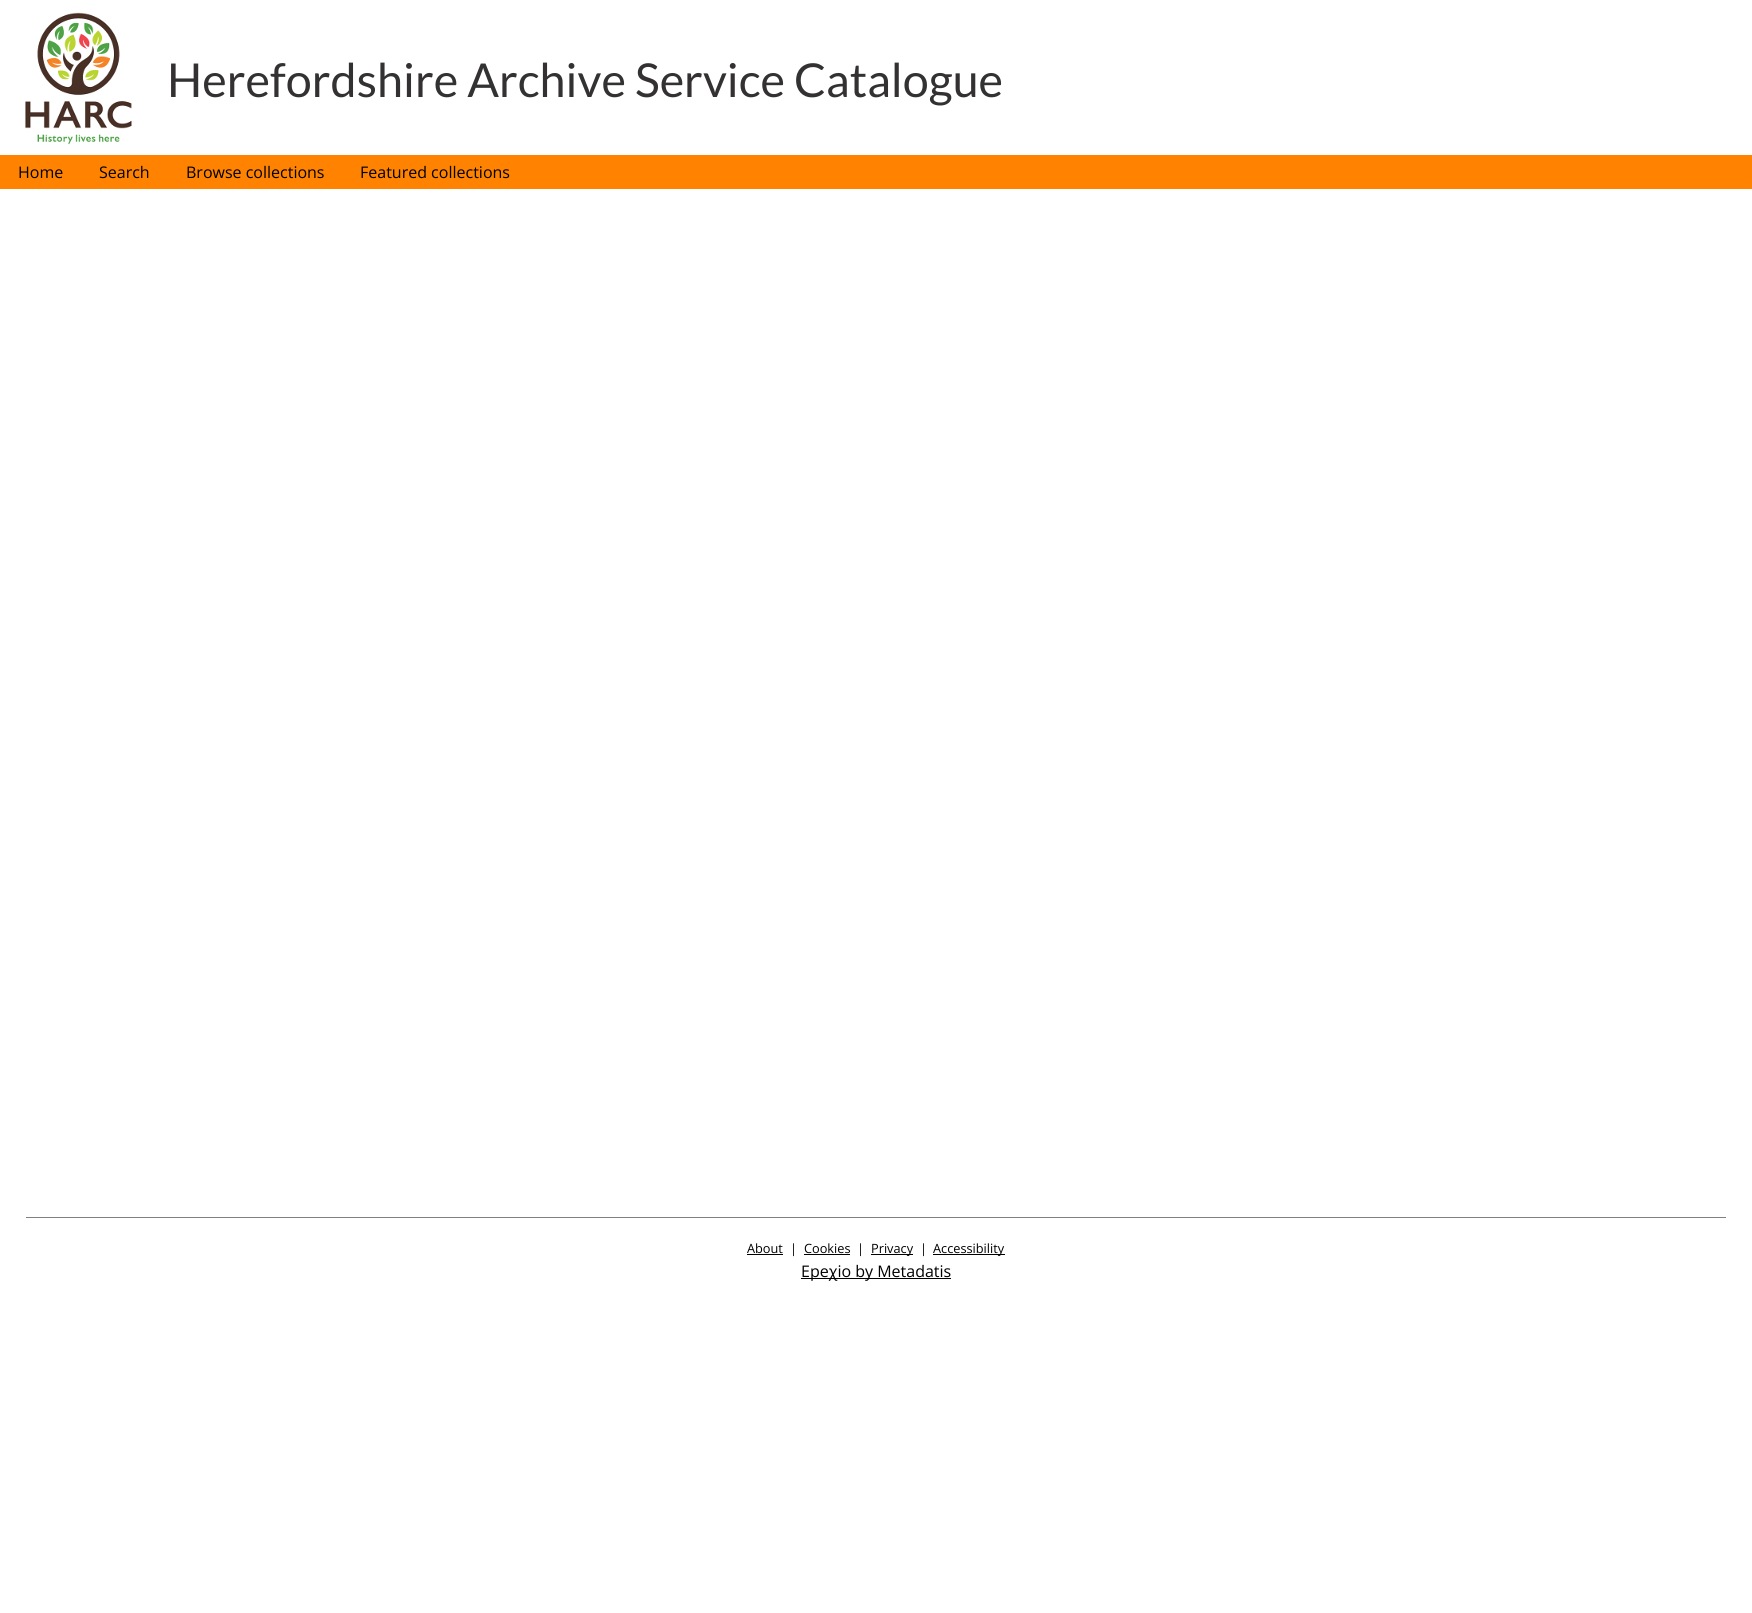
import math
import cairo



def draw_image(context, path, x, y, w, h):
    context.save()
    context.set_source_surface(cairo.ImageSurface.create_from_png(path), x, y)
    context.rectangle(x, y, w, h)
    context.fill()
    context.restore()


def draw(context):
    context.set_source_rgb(1, 1, 1)
    context.paint()
    draw_image(context, "images/1.png", 25, 12, 107, 133)
    context.set_source_rgb(1, 131 / 255, 0)
    context.rectangle(0, 155, 1752, 34)
    context.fill()
    context.set_source_rgb(128 / 255, 128 / 255, 128 / 255)
    context.rectangle(26, 1217, 1700, 1)
    context.fill()
    context.set_source_rgb(0, 0, 0)
    context.rectangle(747, 1254, 36, 1)
    context.fill()
    context.rectangle(804, 1254, 46, 1)
    context.fill()
    context.rectangle(871, 1254, 42, 1)
    context.fill()
    context.rectangle(933, 1254, 72, 1)
    context.fill()
    context.rectangle(801, 1278, 150, 1)
    context.fill()
    context.select_font_face("Lato")
    context.set_font_size(46.7)
    context.set_source_rgb(51 / 255, 49 / 255, 49 / 255)
    context.move_to(167, 97)
    context.show_text("Herefordshire Archive Service Catalogue")
    context.select_font_face("Open Sans")
    context.set_font_size(16)
    context.set_source_rgb(0, 0, 0)
    context.move_to(18, 178)
    context.show_text("Home")
    context.move_to(99, 178)
    context.show_text("Search")
    context.move_to(186, 178)
    context.show_text("Browse collections")
    context.move_to(360, 178)
    context.show_text("Featured collections")
    context.set_font_size(12.75)
    context.move_to(747, 1253)
    context.show_text("About")
    context.move_to(790, 1253)
    context.show_text("|")
    context.move_to(804, 1253)
    context.show_text("Cookies")
    context.move_to(857, 1253)
    context.show_text("|")
    context.move_to(871, 1253)
    context.show_text("Privacy")
    context.move_to(920, 1253)
    context.show_text("|")
    context.move_to(933, 1253)
    context.show_text("Accessibility")
    context.set_font_size(16)
    context.move_to(801, 1277)
    context.show_text("Epeχio by Metadatis")


surface = cairo.ImageSurface(cairo.Format.RGB24, 1752, 1613)
context = cairo.Context(surface)
options = cairo.FontOptions()
options.set_hint_metrics(cairo.HintMetrics.OFF)
options.set_hint_style(cairo.HintStyle.NONE)
context.set_font_options(options)
context.set_miter_limit(4)
draw(context)
surface.write_to_png("out.png")
